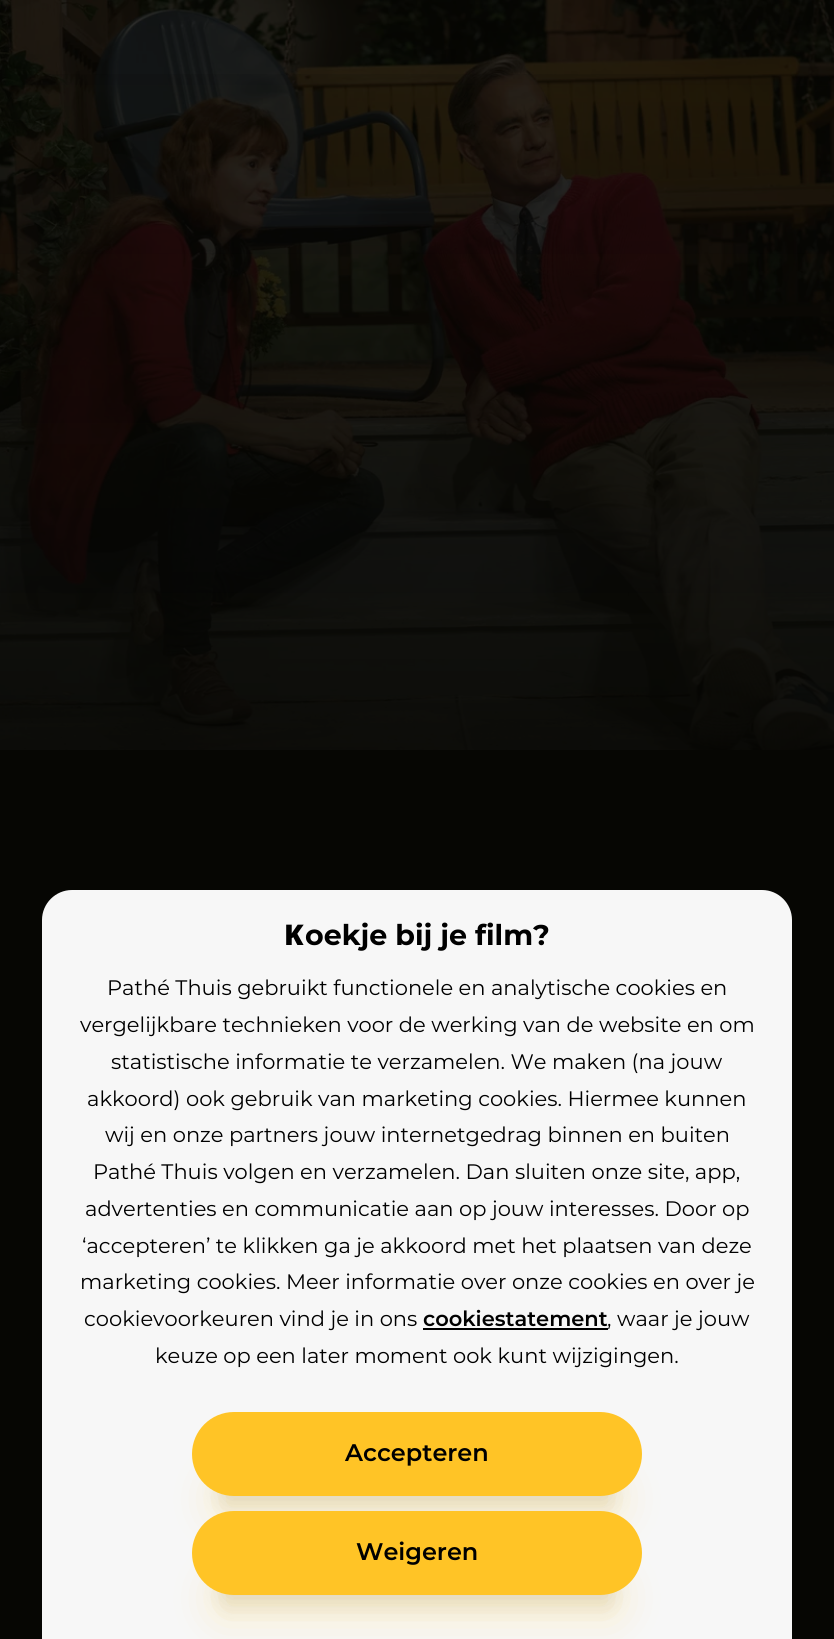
import math
import cairo



def rounded_rect(context, x, y, w, h, r):
    context.new_sub_path()
    for i, (u, v) in enumerate([(x + w - r, y + h - r), (x + r, y + h - r), (x + r, y + r), (x + w - r, y + r)]):
        context.arc(u, v, r, i * math.pi / 2, (i + 1) * math.pi / 2)
    context.close_path()


def draw_shadow(context, x, y, w, h, r, blur, alpha):
    context.push_group_with_content(cairo.Content.ALPHA)
    context.set_operator(cairo.Operator.SOURCE)
    for i in range(15, -16, -2):
        e = blur * i / 6
        if min(w, h) + 2 * e > 0:
            context.set_source_rgba(0, 0, 0, alpha * math.erfc((i - 1) / 8.5) / 2)
            rounded_rect(context, x - e, y - e, w + 2 * e, h + 2 * e, max(0, min(r + e + blur * .6, min(w, h) / 2 + e)))
            context.fill()
    context.mask(context.pop_group())


def draw_image(context, path, x, y, w, h):
    context.save()
    context.set_source_surface(cairo.ImageSurface.create_from_png(path), x, y)
    context.rectangle(x, y, w, h)
    context.fill()
    context.restore()


def draw(context):
    context.set_source_rgb(6 / 255, 6 / 255, 3 / 255)
    context.paint()
    draw_image(context, "images/1.png", 0, 0, 834, 750)
    gradient = cairo.LinearGradient(417, 0, 417, 762)
    gradient.add_color_stop_rgba(0, 6 / 255, 6 / 255, 3 / 255, 0)
    gradient.add_color_stop_rgba(1, 6 / 255, 6 / 255, 3 / 255, 0.75)
    context.set_source(gradient)
    context.rectangle(0, 74, 834, 676)
    context.fill()
    context.set_source_rgb(247 / 255, 247 / 255, 247 / 255)
    context.new_path()
    context.move_to(72, 890)
    context.line_to(762, 890)
    context.curve_to(778.5, 890, 792, 903.5, 792, 920)
    context.line_to(792, 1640)
    context.line_to(42, 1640)
    context.line_to(42, 920)
    context.curve_to(42, 903.5, 55.5, 890, 72, 890)
    context.close_path()
    context.fill()
    context.set_source_rgb(0, 0, 0)
    context.rectangle(423, 1328, 185, 2)
    context.fill()
    context.set_source_rgb(1, 196 / 255, 38 / 255)
    draw_shadow(context, 222, 1487, 390, 24, 12, 22.5, 0.3)
    context.set_source_rgb(0, 0, 0)
    draw_shadow(context, 222, 1479, 390, 24, 12, 11, 0.1)
    context.set_source_rgb(1, 196 / 255, 38 / 255)
    rounded_rect(context, 192, 1412, 450, 84, 42)
    context.fill()
    context.set_source_rgb(1, 196 / 255, 38 / 255)
    draw_shadow(context, 222, 1586, 390, 24, 12, 22.5, 0.3)
    context.set_source_rgb(0, 0, 0)
    draw_shadow(context, 222, 1578, 390, 24, 12, 11, 0.1)
    context.set_source_rgb(1, 196 / 255, 38 / 255)
    rounded_rect(context, 192, 1511, 450, 84, 42)
    context.fill()
    context.select_font_face("Noto Sans Black")
    context.set_font_size(28.5)
    context.set_source_rgb(0, 0, 0)
    context.move_to(284, 945)
    context.show_text("K")
    context.select_font_face("Montserrat", cairo.FontSlant.NORMAL, cairo.FontWeight.BOLD)
    context.move_to(305, 945)
    context.show_text("oekje bij je film?")
    context.select_font_face("Montserrat")
    context.set_font_size(21)
    context.move_to(107, 995)
    context.show_text("Pathé Thuis gebruikt functionele en analytische cookies en")
    context.move_to(80, 1032)
    context.show_text("vergelijkbare technieken voor de werking van de website en om")
    context.move_to(111, 1069)
    context.show_text("statistische informatie te verzamelen. We maken (na jouw")
    context.move_to(87, 1106)
    context.show_text("akkoord) ook gebruik van marketing cookies. Hiermee kunnen")
    context.move_to(105, 1142)
    context.show_text("wij en onze partners jouw internetgedrag binnen en buiten")
    context.move_to(93, 1179)
    context.show_text("Pathé Thuis volgen en verzamelen. Dan sluiten onze site, app,")
    context.move_to(85, 1216)
    context.show_text("advertenties en communicatie aan op jouw interesses. Door op")
    context.move_to(82, 1253)
    context.show_text("‘accepteren’ te klikken ga je akkoord met het plaatsen van deze")
    context.move_to(80, 1289)
    context.show_text("marketing cookies. Meer informatie over onze cookies en over je")
    context.move_to(84, 1326)
    context.show_text("cookievoorkeuren vind je in ons")
    context.select_font_face("Montserrat SemiBold")
    context.move_to(423, 1326)
    context.show_text("cookiestatement")
    context.select_font_face("Montserrat")
    context.move_to(607, 1326)
    context.show_text(", waar je jouw")
    context.move_to(155, 1363)
    context.show_text("keuze op een later moment ook kunt wijzigingen.")
    context.select_font_face("Montserrat SemiBold")
    context.set_font_size(24)
    context.move_to(345, 1461)
    context.show_text("Accepteren")
    context.move_to(356, 1560)
    context.show_text("Weigeren")


surface = cairo.ImageSurface(cairo.Format.RGB24, 834, 1639)
context = cairo.Context(surface)
options = cairo.FontOptions()
options.set_hint_metrics(cairo.HintMetrics.OFF)
options.set_hint_style(cairo.HintStyle.NONE)
context.set_font_options(options)
context.set_miter_limit(4)
draw(context)
surface.write_to_png("out.png")
